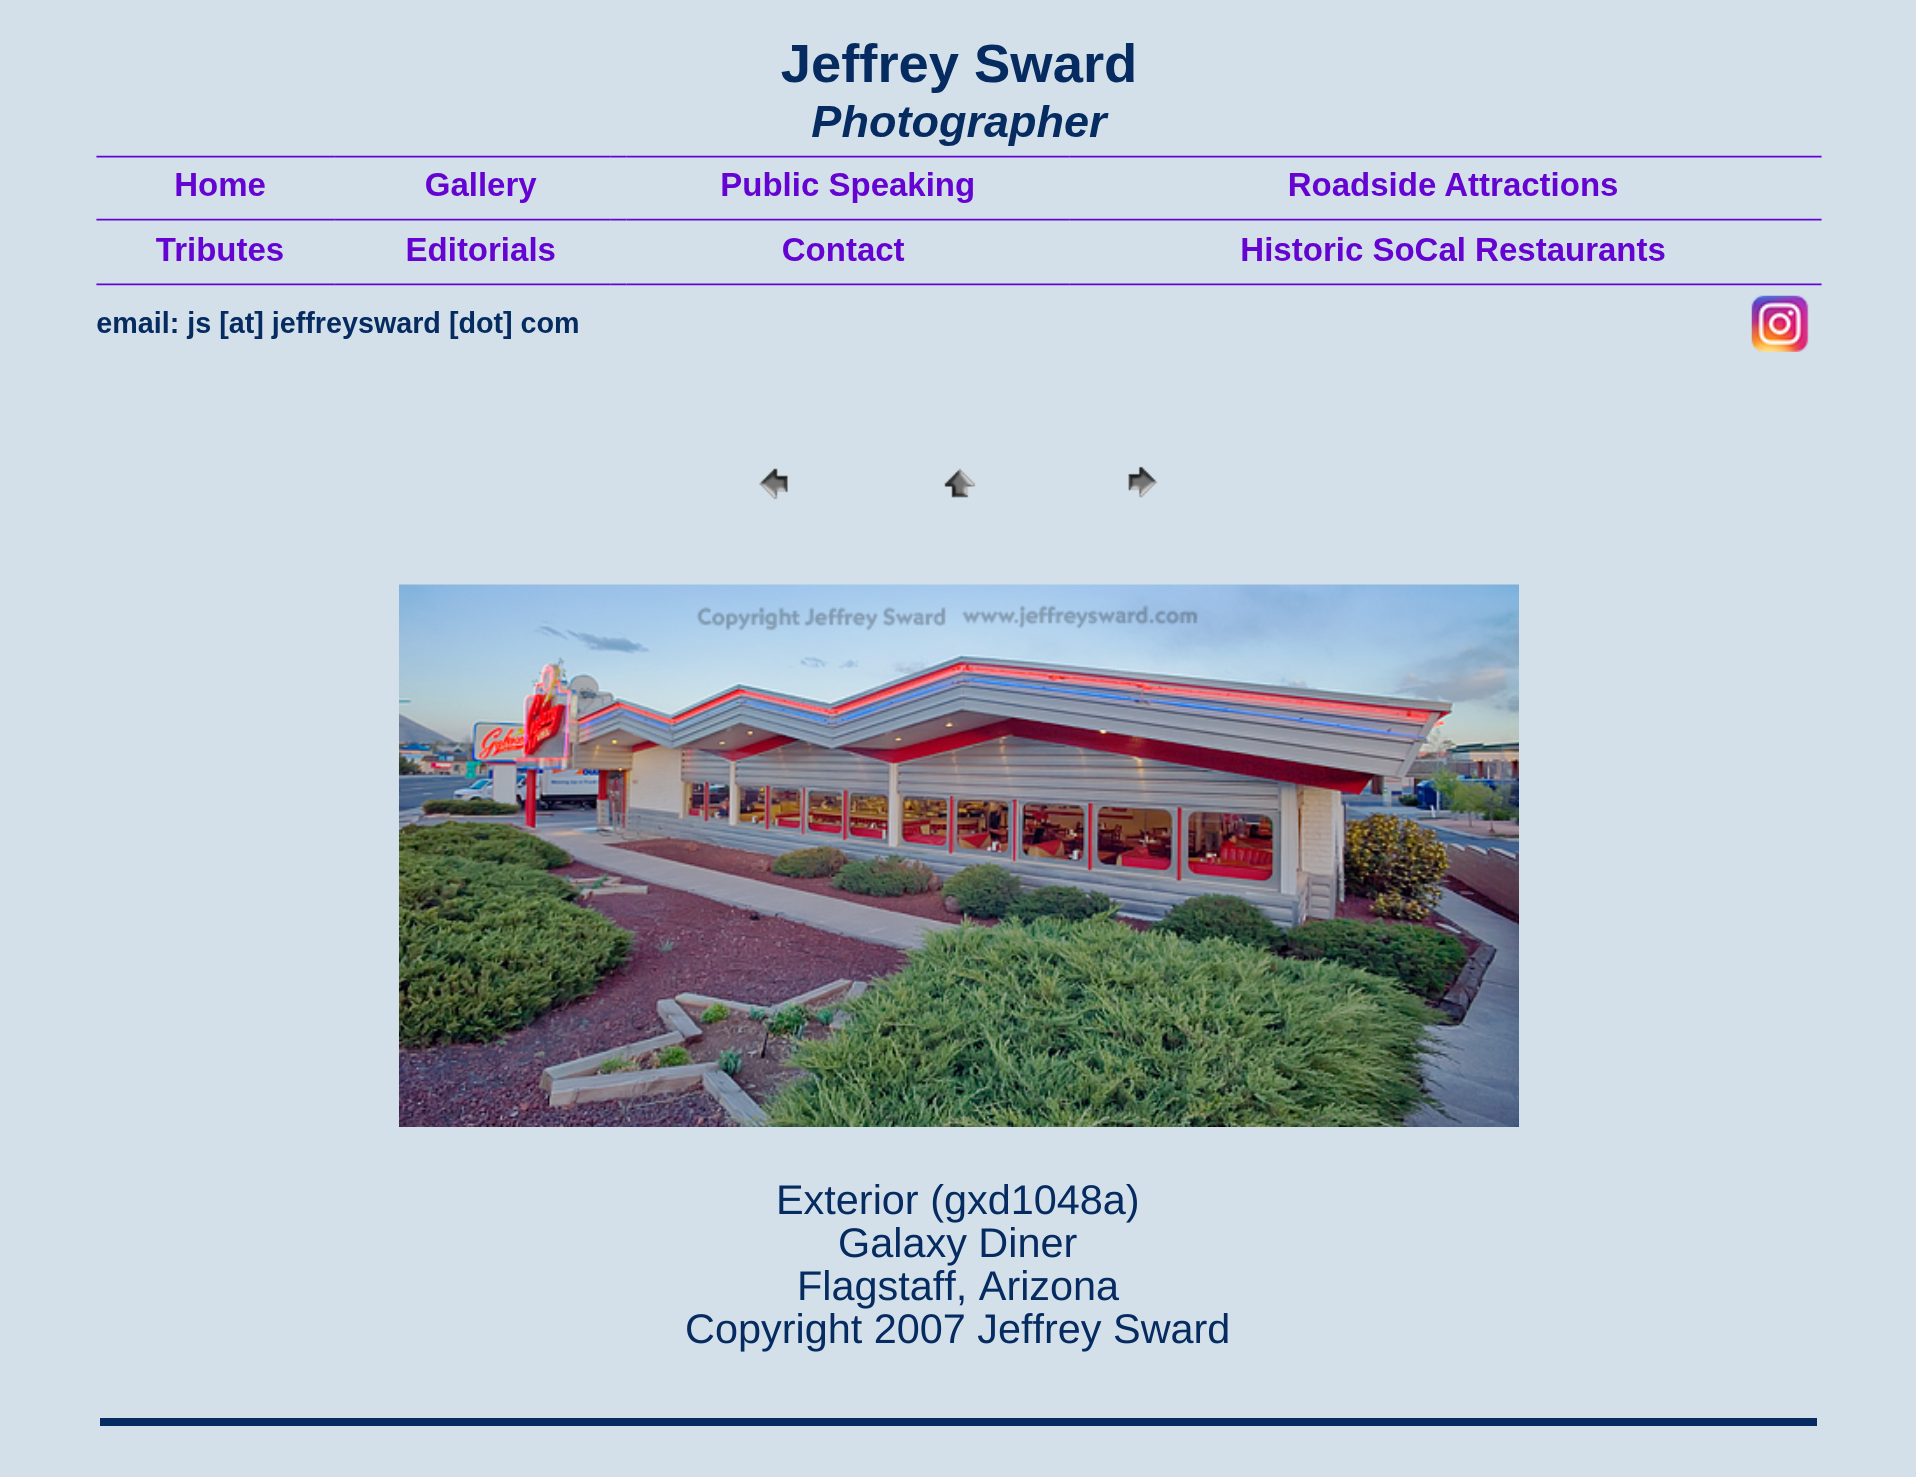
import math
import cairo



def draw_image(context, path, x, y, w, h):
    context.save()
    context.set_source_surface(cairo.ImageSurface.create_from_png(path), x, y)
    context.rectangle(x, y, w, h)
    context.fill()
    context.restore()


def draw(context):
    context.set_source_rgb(211 / 255, 224 / 255, 233 / 255)
    context.paint()
    draw_image(context, "images/1.png", 96, 43, 1726, 309)
    draw_image(context, "images/2.png", 759, 468, 29, 32)
    draw_image(context, "images/3.png", 944, 468, 32, 30)
    draw_image(context, "images/4.png", 1128, 466, 30, 32)
    draw_image(context, "images/5.png", 399, 584, 1120, 543)
    context.set_source_rgb(5 / 255, 43 / 255, 97 / 255)
    context.rectangle(100, 1418, 1717, 8)
    context.fill()
    context.select_font_face("Liberation Sans")
    context.set_font_size(41.4)
    context.move_to(776, 1214)
    context.show_text("Exterior (gxd1048a)")
    context.move_to(838, 1257)
    context.show_text("Galaxy Diner")
    context.move_to(797, 1300)
    context.show_text("Flagstaff, Arizona")
    context.move_to(685, 1343)
    context.show_text("Copyright 2007 Jeffrey Sward")


surface = cairo.ImageSurface(cairo.Format.RGB24, 1916, 1477)
context = cairo.Context(surface)
options = cairo.FontOptions()
options.set_hint_metrics(cairo.HintMetrics.OFF)
options.set_hint_style(cairo.HintStyle.NONE)
context.set_font_options(options)
context.set_miter_limit(4)
draw(context)
surface.write_to_png("out.png")
